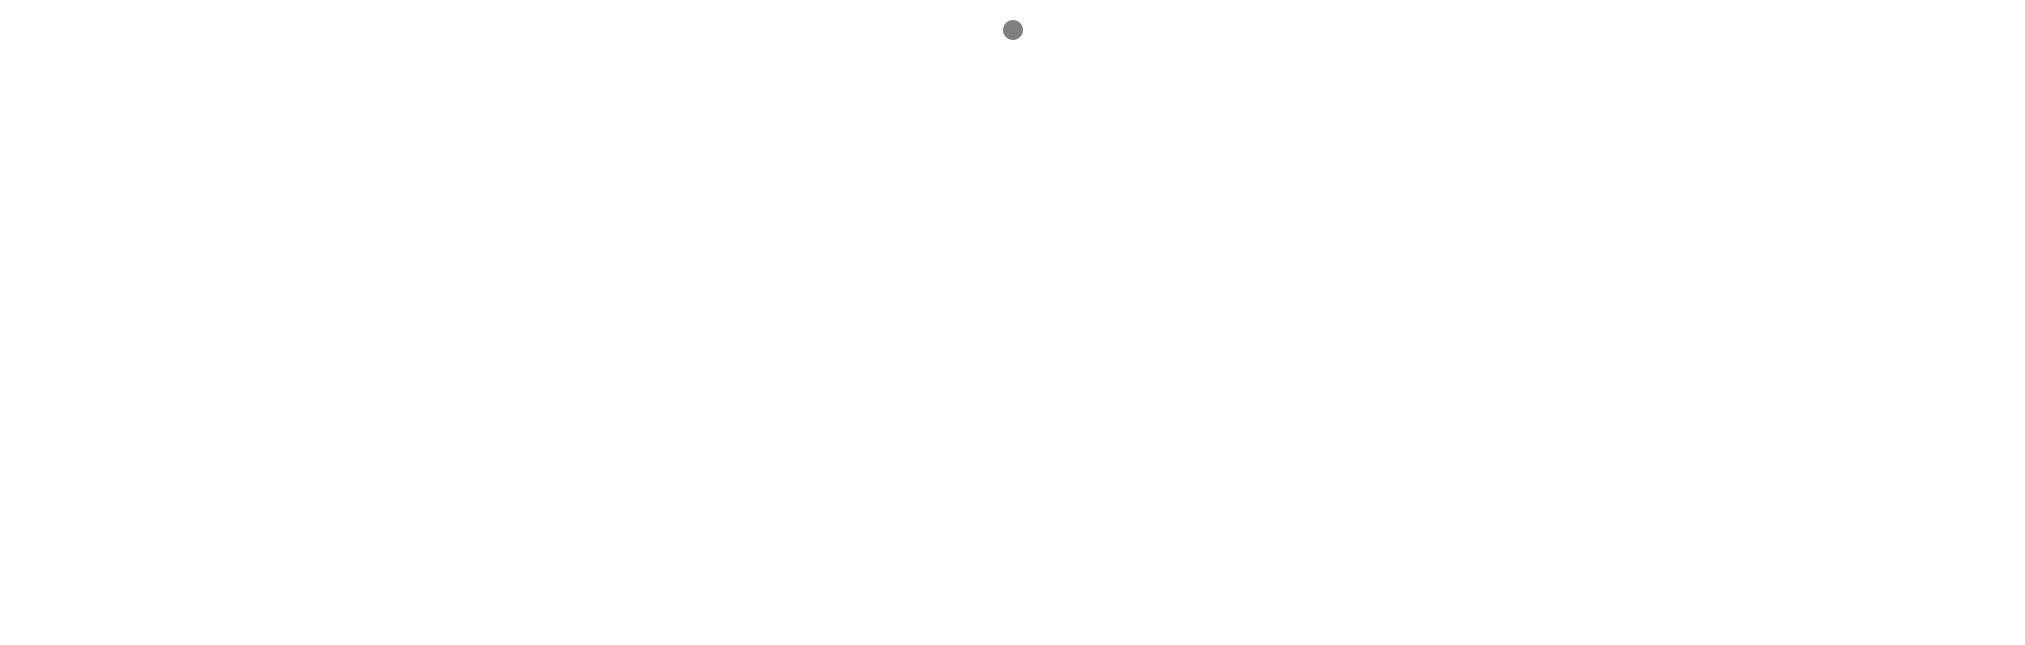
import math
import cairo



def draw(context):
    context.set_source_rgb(1, 1, 1)
    context.paint()
    context.set_source_rgb(128 / 255, 128 / 255, 128 / 255)
    context.arc(1013, 30, 10, 0, 2 * math.pi)
    context.fill()


surface = cairo.ImageSurface(cairo.Format.RGB24, 2025, 645)
context = cairo.Context(surface)
options = cairo.FontOptions()
options.set_hint_metrics(cairo.HintMetrics.OFF)
options.set_hint_style(cairo.HintStyle.NONE)
context.set_font_options(options)
context.set_miter_limit(4)
draw(context)
surface.write_to_png("out.png")
